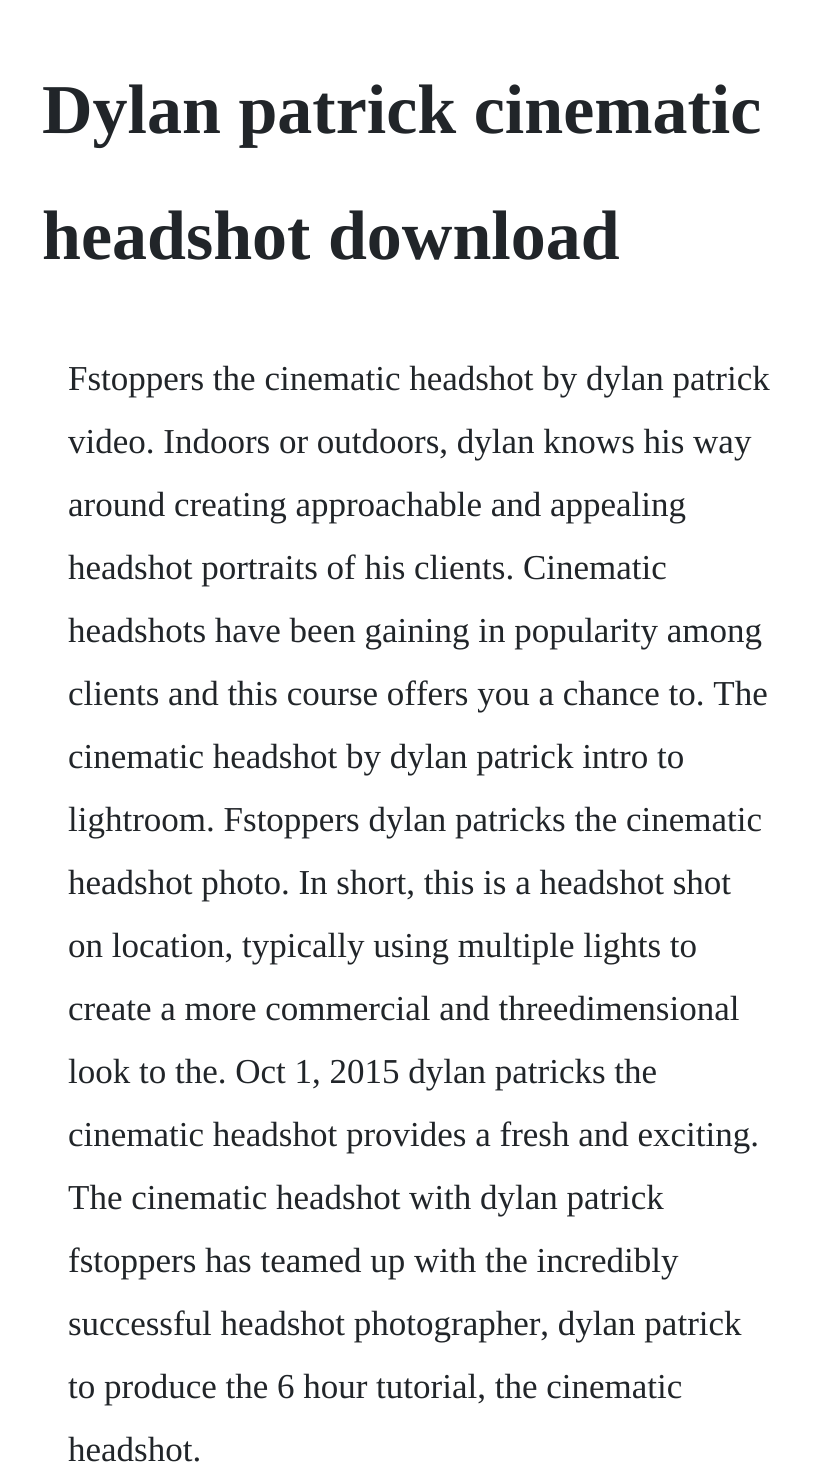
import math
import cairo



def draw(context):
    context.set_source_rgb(1, 1, 1)
    context.paint()
    context.select_font_face("Liberation Serif", cairo.FontSlant.NORMAL, cairo.FontWeight.BOLD)
    context.set_font_size(70)
    context.set_source_rgb(33 / 255, 37 / 255, 41 / 255)
    context.move_to(42, 133)
    context.show_text("Dylan patrick cinematic")
    context.move_to(42, 259)
    context.show_text("headshot download")
    context.select_font_face("Liberation Serif")
    context.set_font_size(35)
    context.move_to(68, 390)
    context.show_text("Fstoppers the cinematic headshot by dylan patrick")
    context.move_to(68, 453)
    context.show_text("video. Indoors or outdoors, dylan knows his way")
    context.move_to(68, 516)
    context.show_text("around creating approachable and appealing")
    context.move_to(68, 579)
    context.show_text("headshot portraits of his clients. Cinematic")
    context.move_to(68, 642)
    context.show_text("headshots have been gaining in popularity among")
    context.move_to(68, 705)
    context.show_text("clients and this course offers you a chance to. The")
    context.move_to(68, 768)
    context.show_text("cinematic headshot by dylan patrick intro to")
    context.move_to(68, 831)
    context.show_text("lightroom. Fstoppers dylan patricks the cinematic")
    context.move_to(68, 894)
    context.show_text("headshot photo. In short, this is a headshot shot")
    context.move_to(68, 957)
    context.show_text("on location, typically using multiple lights to")
    context.move_to(68, 1020)
    context.show_text("create a more commercial and threedimensional")
    context.move_to(68, 1083)
    context.show_text("look to the. Oct 1, 2015 dylan patricks the")
    context.move_to(68, 1146)
    context.show_text("cinematic headshot provides a fresh and exciting.")
    context.move_to(68, 1209)
    context.show_text("The cinematic headshot with dylan patrick")
    context.move_to(68, 1272)
    context.show_text("fstoppers has teamed up with the incredibly")
    context.move_to(68, 1335)
    context.show_text("successful headshot photographer, dylan patrick")
    context.move_to(68, 1398)
    context.show_text("to produce the 6 hour tutorial, the cinematic")
    context.move_to(68, 1461)
    context.show_text("headshot.")


surface = cairo.ImageSurface(cairo.Format.RGB24, 837, 1479)
context = cairo.Context(surface)
options = cairo.FontOptions()
options.set_hint_metrics(cairo.HintMetrics.OFF)
options.set_hint_style(cairo.HintStyle.NONE)
context.set_font_options(options)
context.set_miter_limit(4)
draw(context)
surface.write_to_png("out.png")
